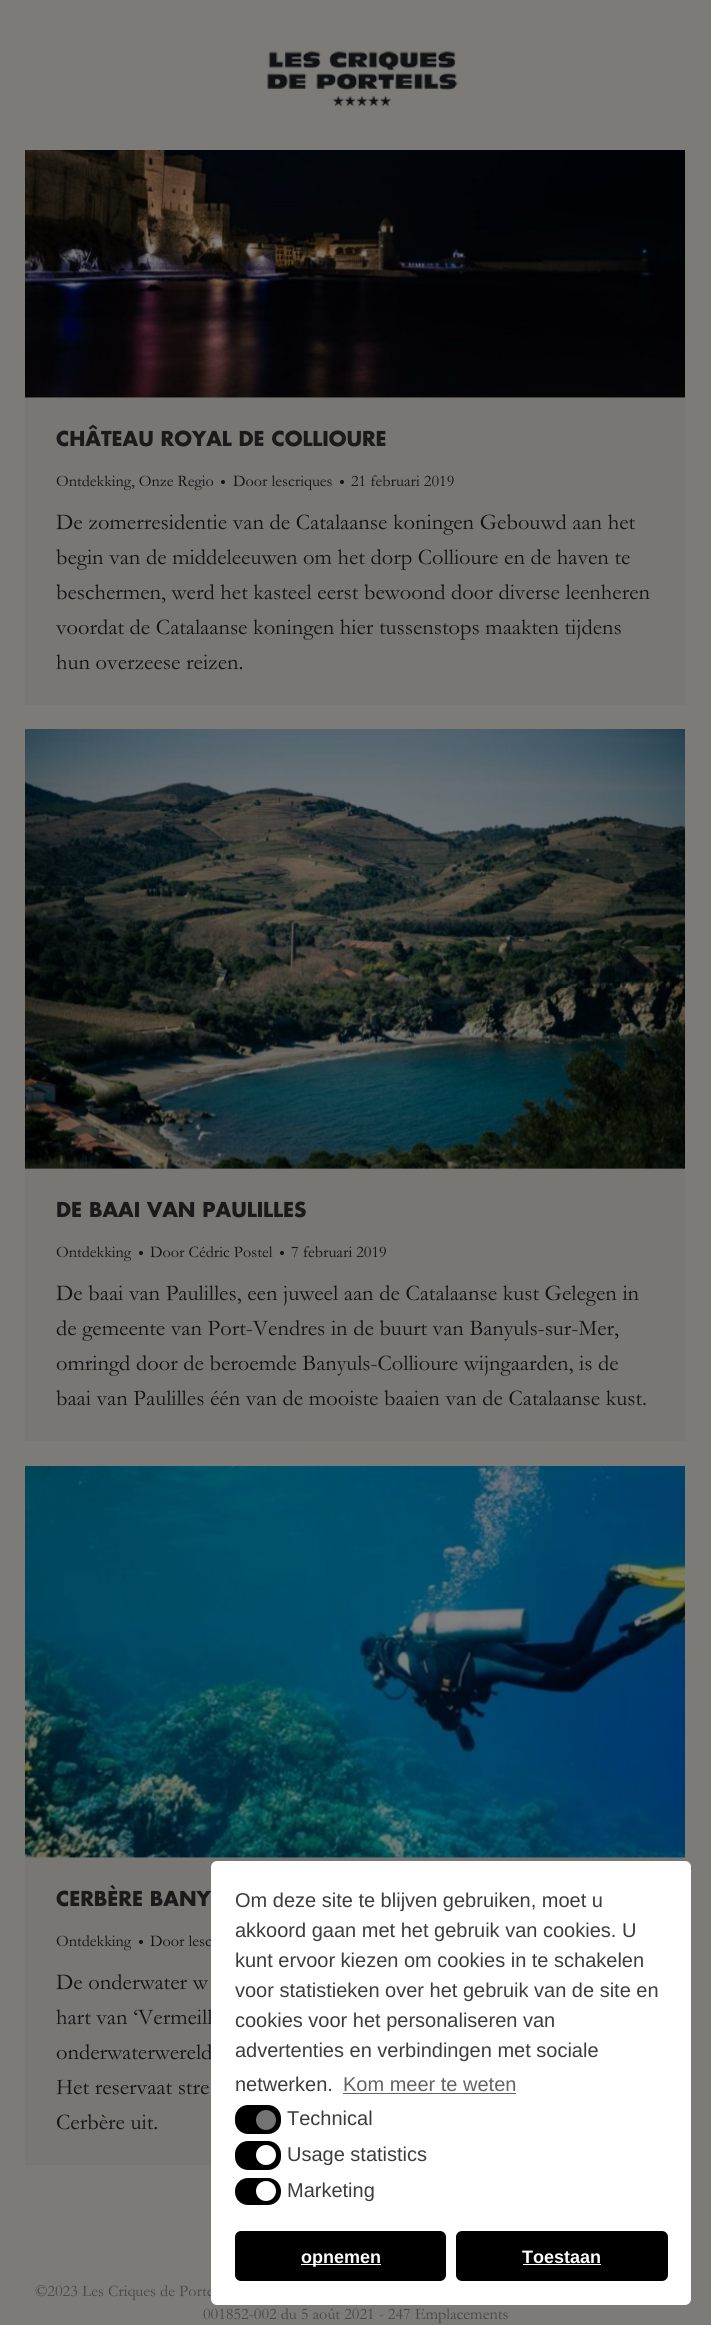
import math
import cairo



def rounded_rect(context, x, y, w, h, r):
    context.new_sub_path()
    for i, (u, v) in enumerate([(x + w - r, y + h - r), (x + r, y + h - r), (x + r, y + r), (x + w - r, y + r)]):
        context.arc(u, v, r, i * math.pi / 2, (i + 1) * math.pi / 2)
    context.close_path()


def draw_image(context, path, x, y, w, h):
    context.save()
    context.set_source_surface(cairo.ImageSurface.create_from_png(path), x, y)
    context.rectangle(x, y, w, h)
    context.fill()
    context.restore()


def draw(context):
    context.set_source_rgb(125 / 255, 123 / 255, 119 / 255)
    context.paint()
    draw_image(context, "images/1.png", 267, 51, 191, 56)
    context.set_source_rgb(120 / 255, 119 / 255, 115 / 255)
    context.rectangle(25, 397, 660, 308)
    context.fill()
    draw_image(context, "images/2.png", 25, 150, 660, 248)
    context.set_source_rgb(17 / 255, 19 / 255, 21 / 255)
    context.arc(223, 482, 2, 0, 2 * math.pi)
    context.fill()
    context.arc(342, 482, 2, 0, 2 * math.pi)
    context.fill()
    context.set_source_rgb(120 / 255, 119 / 255, 115 / 255)
    context.rectangle(25, 1168, 660, 273)
    context.fill()
    draw_image(context, "images/3.png", 25, 729, 660, 440)
    context.set_source_rgb(17 / 255, 19 / 255, 21 / 255)
    context.arc(141, 1253, 2, 0, 2 * math.pi)
    context.fill()
    context.arc(282, 1253, 2, 0, 2 * math.pi)
    context.fill()
    context.set_source_rgb(120 / 255, 119 / 255, 115 / 255)
    context.rectangle(25, 1857, 660, 308)
    context.fill()
    draw_image(context, "images/4.png", 25, 1466, 660, 392)
    context.set_source_rgb(17 / 255, 19 / 255, 21 / 255)
    context.arc(141, 1942, 2, 0, 2 * math.pi)
    context.fill()
    context.select_font_face("Futura", cairo.FontSlant.NORMAL, cairo.FontWeight.BOLD)
    context.set_font_size(20)
    context.set_source_rgb(26 / 255, 26 / 255, 26 / 255)
    context.move_to(56, 446)
    context.show_text("CHÂTEAU ROYAL DE COLLIOURE")
    context.select_font_face("Garamond")
    context.set_font_size(16.25)
    context.set_source_rgb(17 / 255, 19 / 255, 21 / 255)
    context.move_to(56, 486)
    context.show_text("Ontdekking, Onze Regio")
    context.move_to(233, 486)
    context.show_text("Door lescriques")
    context.move_to(351, 486)
    context.show_text("21 februari 2019")
    context.set_font_size(22.5)
    context.move_to(56, 529)
    context.show_text("De zomerresidentie van de Catalaanse koningen Gebouwd aan het")
    context.move_to(56, 564)
    context.show_text("begin van de middeleeuwen om het dorp Collioure en de haven te")
    context.move_to(56, 599)
    context.show_text("beschermen, werd het kasteel eerst bewoond door diverse leenheren")
    context.move_to(56, 634)
    context.show_text("voordat de Catalaanse koningen hier tussenstops maakten tijdens")
    context.move_to(56, 669)
    context.show_text("hun overzeese reizen.")
    context.select_font_face("Futura", cairo.FontSlant.NORMAL, cairo.FontWeight.BOLD)
    context.set_font_size(20)
    context.set_source_rgb(26 / 255, 26 / 255, 26 / 255)
    context.move_to(56, 1217)
    context.show_text("DE BAAI VAN PAULILLES")
    context.select_font_face("Garamond")
    context.set_font_size(16.25)
    context.set_source_rgb(17 / 255, 19 / 255, 21 / 255)
    context.move_to(56, 1257)
    context.show_text("Ontdekking")
    context.move_to(150, 1257)
    context.show_text("Door Cédric Postel")
    context.move_to(291, 1257)
    context.show_text("7 februari 2019")
    context.set_font_size(22.5)
    context.move_to(56, 1300)
    context.show_text("De baai van Paulilles, een juweel aan de Catalaanse kust Gelegen in")
    context.move_to(56, 1335)
    context.show_text("de gemeente van Port-Vendres in de buurt van Banyuls-sur-Mer,")
    context.move_to(56, 1370)
    context.show_text("omringd door de beroemde Banyuls-Collioure wijngaarden, is de")
    context.move_to(56, 1405)
    context.show_text("baai van Paulilles één van de mooiste baaien van de Catalaanse kust.")
    context.select_font_face("Futura", cairo.FontSlant.NORMAL, cairo.FontWeight.BOLD)
    context.set_font_size(20)
    context.set_source_rgb(26 / 255, 26 / 255, 26 / 255)
    context.move_to(56, 1906)
    context.show_text("CERBÈRE BANY")
    context.select_font_face("Garamond")
    context.set_font_size(16.25)
    context.set_source_rgb(17 / 255, 19 / 255, 21 / 255)
    context.move_to(56, 1946)
    context.show_text("Ontdekking")
    context.move_to(150, 1946)
    context.show_text("Door lesc")
    context.set_font_size(22.5)
    context.move_to(56, 1989)
    context.show_text("De onderwater w")
    context.move_to(56, 2024)
    context.show_text("hart van ‘Vermeill")
    context.move_to(56, 2059)
    context.show_text("onderwaterwereld")
    context.move_to(56, 2094)
    context.show_text("Het reservaat stre")
    context.move_to(56, 2129)
    context.show_text("Cerbère uit.")
    context.set_font_size(16.25)
    context.set_source_rgb(70 / 255, 71 / 255, 74 / 255)
    context.move_to(35, 2296)
    context.show_text("©2023 Les Criques de Porte")
    context.move_to(203, 2319)
    context.show_text("001852-002 du 5 août 2021 - 247 Emplacements")
    context.set_source_rgb(1, 1, 1)
    rounded_rect(context, 211, 1861, 480, 444, 6)
    context.fill()
    context.select_font_face("Liberation Sans")
    context.set_font_size(20)
    context.set_source_rgb(60 / 255, 60 / 255, 60 / 255)
    context.move_to(235, 1907)
    context.show_text("Om deze site te blijven gebruiken, moet u")
    context.move_to(235, 1937)
    context.show_text("akkoord gaan met het gebruik van cookies. U")
    context.move_to(235, 1967)
    context.show_text("kunt ervoor kiezen om cookies in te schakelen")
    context.move_to(235, 1997)
    context.show_text("voor statistieken over het gebruik van de site en")
    context.move_to(235, 2027)
    context.show_text("cookies voor het personaliseren van")
    context.move_to(235, 2057)
    context.show_text("advertenties en verbindingen met sociale")
    context.move_to(235, 2091)
    context.show_text("netwerken.")
    context.set_source_rgb(99 / 255, 99 / 255, 99 / 255)
    context.move_to(343, 2091)
    context.show_text("Kom meer te weten")
    context.rectangle(343, 2093, 173, 1)
    context.fill()
    context.set_source_rgb(0, 0, 0)
    rounded_rect(context, 235, 2105, 46, 29, 13)
    context.fill()
    context.set_source_rgb(115 / 255, 115 / 255, 115 / 255)
    context.arc(266, 2120, 10, 0, 2 * math.pi)
    context.fill()
    context.set_source_rgb(60 / 255, 60 / 255, 60 / 255)
    context.move_to(287, 2125)
    context.show_text("Technical")
    context.set_source_rgb(0, 0, 0)
    rounded_rect(context, 235, 2141, 46, 29, 13)
    context.fill()
    context.set_source_rgb(1, 1, 1)
    context.arc(266, 2155, 10, 0, 2 * math.pi)
    context.fill()
    context.set_source_rgb(60 / 255, 60 / 255, 60 / 255)
    context.move_to(287, 2161)
    context.show_text("Usage statistics")
    context.set_source_rgb(0, 0, 0)
    rounded_rect(context, 235, 2178, 46, 27, 13)
    context.fill()
    context.set_source_rgb(1, 1, 1)
    context.arc(266, 2191, 10, 0, 2 * math.pi)
    context.fill()
    context.set_source_rgb(60 / 255, 60 / 255, 60 / 255)
    context.move_to(287, 2197)
    context.show_text("Marketing")
    context.set_source_rgb(0, 0, 0)
    rounded_rect(context, 235, 2231, 211, 50, 6)
    context.fill()
    context.set_source_rgb(1, 1, 1)
    context.rectangle(301, 2264, 80, 1)
    context.fill()
    context.select_font_face("Liberation Sans", cairo.FontSlant.NORMAL, cairo.FontWeight.BOLD)
    context.set_font_size(18)
    context.move_to(301, 2263)
    context.show_text("opnemen")
    context.set_source_rgb(0, 0, 0)
    rounded_rect(context, 456, 2231, 212, 50, 6)
    context.fill()
    context.set_source_rgb(1, 1, 1)
    context.move_to(522, 2263)
    context.show_text("Toestaan")
    context.rectangle(523, 2264, 78, 1)
    context.fill()


surface = cairo.ImageSurface(cairo.Format.RGB24, 711, 2325)
context = cairo.Context(surface)
options = cairo.FontOptions()
options.set_hint_metrics(cairo.HintMetrics.OFF)
options.set_hint_style(cairo.HintStyle.NONE)
context.set_font_options(options)
context.set_miter_limit(4)
draw(context)
surface.write_to_png("out.png")
